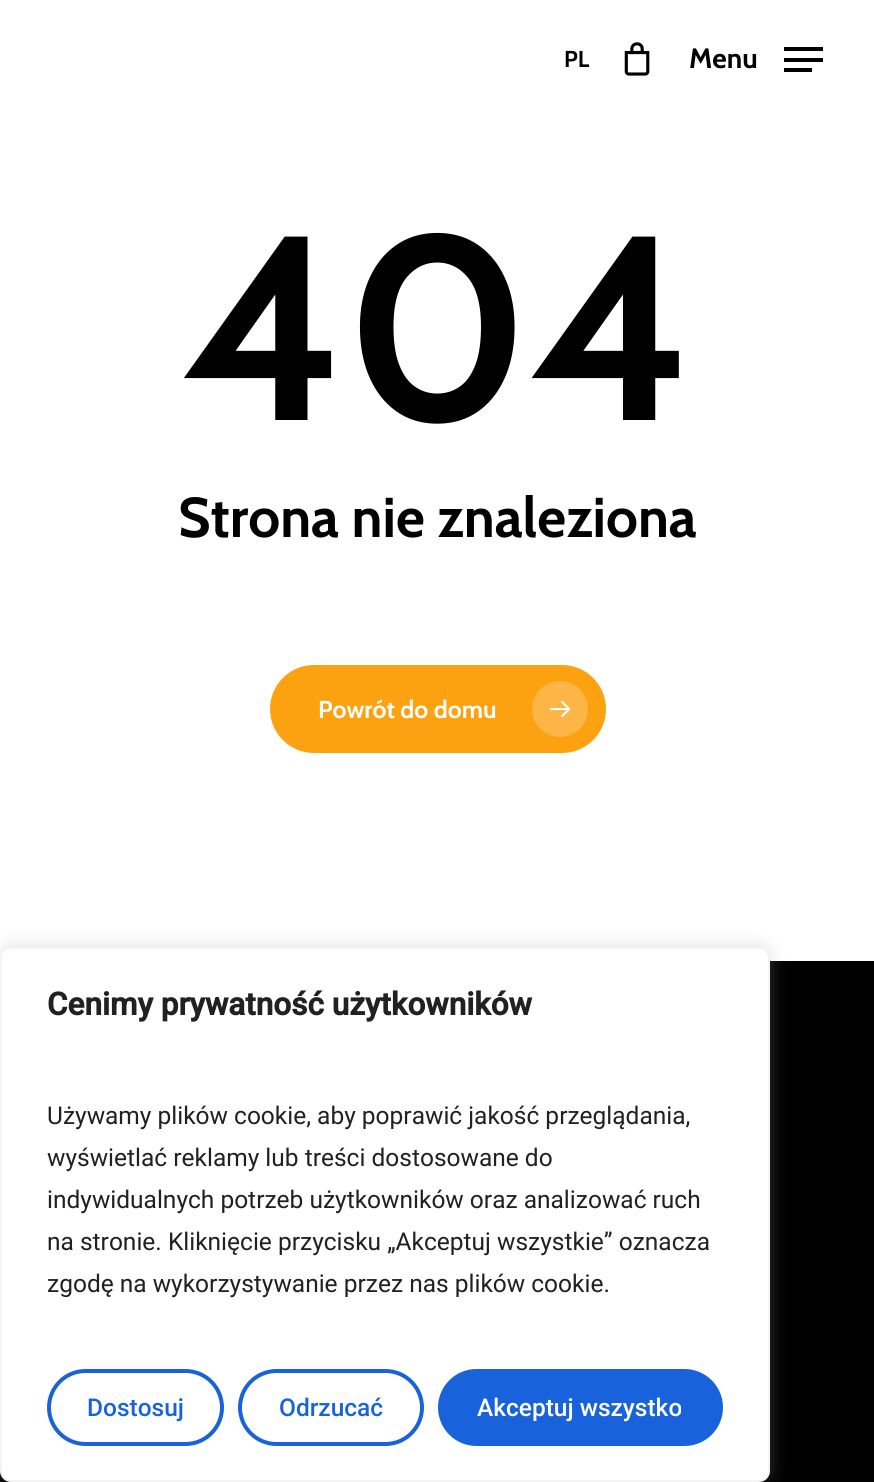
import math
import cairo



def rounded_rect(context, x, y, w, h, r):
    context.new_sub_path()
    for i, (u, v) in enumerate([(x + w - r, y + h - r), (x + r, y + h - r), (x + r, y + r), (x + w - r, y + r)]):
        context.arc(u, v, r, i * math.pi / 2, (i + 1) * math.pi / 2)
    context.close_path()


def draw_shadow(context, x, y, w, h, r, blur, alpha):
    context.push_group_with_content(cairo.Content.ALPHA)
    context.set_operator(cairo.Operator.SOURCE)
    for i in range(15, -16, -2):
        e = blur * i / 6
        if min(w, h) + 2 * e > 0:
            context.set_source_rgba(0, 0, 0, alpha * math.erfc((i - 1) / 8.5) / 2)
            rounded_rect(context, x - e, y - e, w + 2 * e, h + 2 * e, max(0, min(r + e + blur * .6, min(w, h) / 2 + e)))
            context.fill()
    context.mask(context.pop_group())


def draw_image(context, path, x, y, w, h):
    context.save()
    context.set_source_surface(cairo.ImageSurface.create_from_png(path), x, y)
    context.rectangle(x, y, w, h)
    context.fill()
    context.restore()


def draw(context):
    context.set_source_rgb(1, 1, 1)
    context.paint()
    draw_image(context, "images/1.png", 624, 42, 26, 34)
    context.set_source_rgb(0, 0, 0)
    context.rectangle(784, 47, 39, 4)
    context.fill()
    context.rectangle(784, 68, 28, 4)
    context.fill()
    context.rectangle(784, 58, 39, 4)
    context.fill()
    context.set_source_rgb(252 / 255, 162 / 255, 17 / 255)
    rounded_rect(context, 270, 665, 336, 88, 44)
    context.fill()
    context.set_source_rgb(253 / 255, 182 / 255, 69 / 255)
    context.arc(560, 709, 28, 0, 2 * math.pi)
    context.fill()
    draw_image(context, "images/2.png", 549, 700, 22, 18)
    context.set_source_rgb(0, 0, 0)
    context.rectangle(0, 961, 874, 521)
    context.fill()
    context.set_source_rgb(172 / 255, 171 / 255, 171 / 255)
    draw_shadow(context, 0, 945, 770, 536, 11, 9, 0.3)
    context.set_source_rgb(1, 1, 1)
    rounded_rect(context, 1, 948, 768, 533, 10)
    context.fill_preserve()
    context.set_source_rgb(244 / 255, 244 / 255, 244 / 255)
    context.stroke()
    rounded_rect(context, 49, 1371, 173, 73, 36.5)
    context.set_source_rgb(24 / 255, 99 / 255, 220 / 255)
    context.set_line_width(4)
    context.stroke()
    rounded_rect(context, 240, 1371, 182, 73, 36.5)
    context.stroke()
    rounded_rect(context, 440, 1371, 281, 73, 36.5)
    context.fill_preserve()
    context.stroke()
    context.select_font_face("Cabin", cairo.FontSlant.NORMAL, cairo.FontWeight.BOLD)
    context.set_font_size(23)
    context.set_source_rgb(0, 0, 0)
    context.move_to(564, 67)
    context.show_text("PL")
    context.set_font_size(28)
    context.move_to(689, 68)
    context.show_text("Menu")
    context.set_font_size(262)
    context.move_to(182, 420)
    context.show_text("404")
    context.set_font_size(56)
    context.move_to(178, 537)
    context.show_text("Strona nie znaleziona")
    context.set_font_size(24.5)
    context.set_source_rgb(1, 1, 1)
    context.move_to(318, 718)
    context.show_text("Powrót do domu")
    context.select_font_face("Roboto", cairo.FontSlant.NORMAL, cairo.FontWeight.BOLD)
    context.set_font_size(31.5)
    context.set_source_rgb(33 / 255, 33 / 255, 33 / 255)
    context.move_to(47, 1015)
    context.show_text("Cenimy prywatność użytkowników")
    context.select_font_face("Roboto")
    context.set_font_size(24.5)
    context.move_to(47, 1124)
    context.show_text("Używamy plików cookie, aby poprawić jakość przeglądania,")
    context.move_to(47, 1166)
    context.show_text("wyświetlać reklamy lub treści dostosowane do")
    context.move_to(47, 1208)
    context.show_text("indywidualnych potrzeb użytkowników oraz analizować ruch")
    context.move_to(47, 1250)
    context.show_text("na stronie. Kliknięcie przycisku „Akceptuj wszystkie” oznacza")
    context.move_to(47, 1292)
    context.show_text("zgodę na wykorzystywanie przez nas plików cookie.")
    context.select_font_face("Roboto Medium")
    context.set_source_rgb(24 / 255, 99 / 255, 220 / 255)
    context.move_to(87, 1416)
    context.show_text("Dostosuj")
    context.move_to(279, 1416)
    context.show_text("Odrzucać")
    context.set_source_rgb(1, 1, 1)
    context.move_to(477, 1416)
    context.show_text("Akceptuj wszystko")


surface = cairo.ImageSurface(cairo.Format.RGB24, 874, 1482)
context = cairo.Context(surface)
options = cairo.FontOptions()
options.set_hint_metrics(cairo.HintMetrics.OFF)
options.set_hint_style(cairo.HintStyle.NONE)
context.set_font_options(options)
context.set_miter_limit(4)
draw(context)
surface.write_to_png("out.png")
